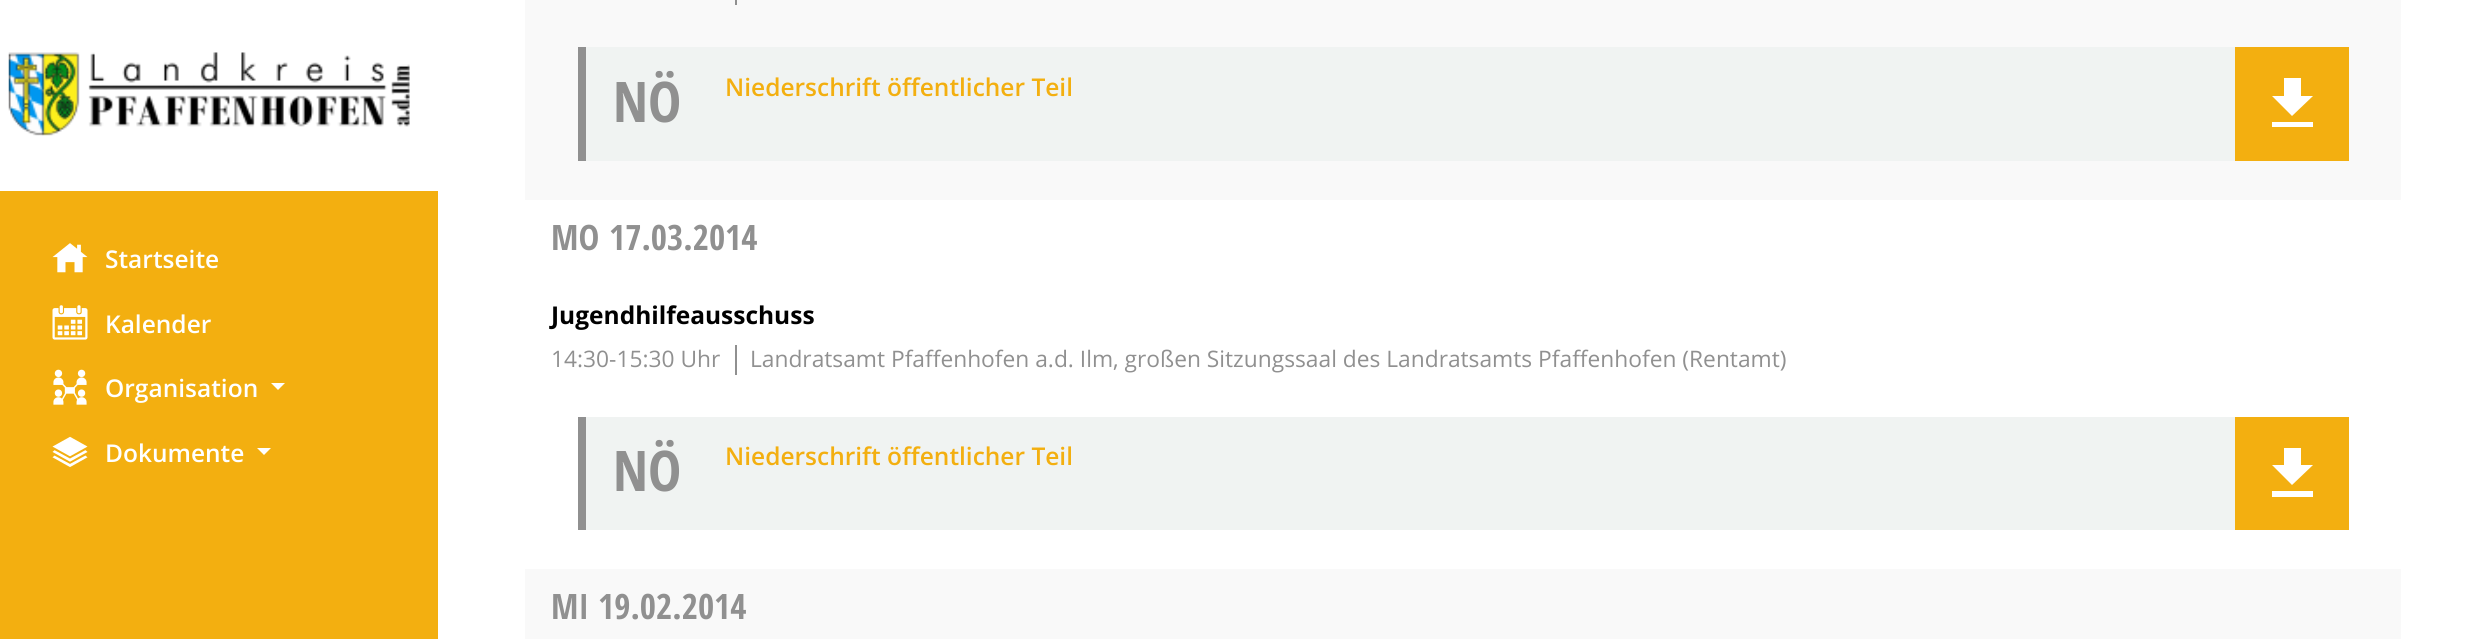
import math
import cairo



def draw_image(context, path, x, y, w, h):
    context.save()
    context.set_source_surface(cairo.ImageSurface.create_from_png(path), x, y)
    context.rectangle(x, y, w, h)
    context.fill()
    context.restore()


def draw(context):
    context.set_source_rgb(1, 1, 1)
    context.paint()
    context.set_source_rgb(243 / 255, 175 / 255, 16 / 255)
    context.rectangle(0, 191, 438, 448)
    context.fill()
    draw_image(context, "images/1.png", 8, 52, 402, 84)
    draw_image(context, "images/2.png", 52, 243, 36, 30)
    draw_image(context, "images/3.png", 52, 305, 36, 35)
    draw_image(context, "images/4.png", 53, 369, 34, 36)
    context.set_source_rgb(1, 1, 1)
    context.new_path()
    context.move_to(271, 383)
    context.line_to(285, 383)
    context.line_to(278, 390)
    context.close_path()
    context.fill()
    draw_image(context, "images/5.png", 52, 436, 36, 31)
    context.new_path()
    context.move_to(257, 448)
    context.line_to(271, 448)
    context.line_to(264, 455)
    context.close_path()
    context.fill()
    context.set_source_rgb(249 / 255, 249 / 255, 249 / 255)
    context.rectangle(525, 0, 1876, 200)
    context.fill()
    context.set_source_rgb(144 / 255, 144 / 255, 144 / 255)
    context.rectangle(735, 0, 2, 5)
    context.fill()
    context.set_source_rgb(240 / 255, 243 / 255, 242 / 255)
    context.rectangle(586, 47, 1649, 114)
    context.fill()
    context.set_source_rgb(144 / 255, 144 / 255, 144 / 255)
    context.rectangle(578, 47, 8, 114)
    context.fill()
    context.set_source_rgb(243 / 255, 175 / 255, 16 / 255)
    context.rectangle(2235, 47, 114, 114)
    context.fill()
    context.set_source_rgb(1, 1, 1)
    context.new_path()
    context.move_to(2313, 96)
    context.line_to(2301, 96)
    context.line_to(2301, 78)
    context.line_to(2284, 78)
    context.line_to(2284, 96)
    context.line_to(2272, 96)
    context.line_to(2292, 116)
    context.close_path()
    context.move_to(2272, 122)
    context.line_to(2272, 127)
    context.line_to(2313, 127)
    context.line_to(2313, 122)
    context.close_path()
    context.fill()
    context.set_source_rgb(144 / 255, 144 / 255, 144 / 255)
    context.rectangle(735, 345, 2, 30)
    context.fill()
    context.set_source_rgb(240 / 255, 243 / 255, 242 / 255)
    context.rectangle(586, 417, 1649, 113)
    context.fill()
    context.set_source_rgb(144 / 255, 144 / 255, 144 / 255)
    context.rectangle(578, 417, 8, 113)
    context.fill()
    context.set_source_rgb(243 / 255, 175 / 255, 16 / 255)
    context.rectangle(2235, 417, 114, 113)
    context.fill()
    context.set_source_rgb(1, 1, 1)
    context.new_path()
    context.move_to(2313, 465)
    context.line_to(2301, 465)
    context.line_to(2301, 448)
    context.line_to(2284, 448)
    context.line_to(2284, 465)
    context.line_to(2272, 465)
    context.line_to(2292, 485)
    context.close_path()
    context.move_to(2272, 491)
    context.line_to(2272, 497)
    context.line_to(2313, 497)
    context.line_to(2313, 491)
    context.close_path()
    context.fill()
    context.set_source_rgb(249 / 255, 249 / 255, 249 / 255)
    context.rectangle(525, 569, 1876, 70)
    context.fill()
    context.select_font_face("Open Sans SemiBold")
    context.set_font_size(24.5)
    context.set_source_rgb(1, 1, 1)
    context.move_to(105, 268)
    context.show_text("Startseite")
    context.move_to(105, 333)
    context.show_text("Kalender")
    context.move_to(105, 397)
    context.show_text("Organisation")
    context.move_to(105, 462)
    context.show_text("Dokumente")
    context.select_font_face("Open Sans Condensed", cairo.FontSlant.NORMAL, cairo.FontWeight.BOLD)
    context.set_font_size(56)
    context.set_source_rgb(144 / 255, 144 / 255, 144 / 255)
    context.move_to(613, 122)
    context.show_text("NÖ")
    context.select_font_face("Open Sans SemiBold")
    context.set_font_size(24.5)
    context.set_source_rgb(243 / 255, 175 / 255, 16 / 255)
    context.move_to(725, 96)
    context.show_text("Niederschrift öffentlicher Teil")
    context.select_font_face("Open Sans Condensed", cairo.FontSlant.NORMAL, cairo.FontWeight.BOLD)
    context.set_font_size(35)
    context.set_source_rgb(144 / 255, 144 / 255, 144 / 255)
    context.move_to(551, 250)
    context.show_text("MO")
    context.move_to(609, 250)
    context.show_text("17.03.2014")
    context.select_font_face("Open Sans", cairo.FontSlant.NORMAL, cairo.FontWeight.BOLD)
    context.set_font_size(24.5)
    context.set_source_rgb(0, 0, 0)
    context.move_to(551, 324)
    context.show_text("Jugendhilfeausschuss")
    context.select_font_face("Open Sans")
    context.set_font_size(22.75)
    context.set_source_rgb(144 / 255, 144 / 255, 144 / 255)
    context.move_to(551, 367)
    context.show_text("14:30-15:30 Uhr")
    context.move_to(750, 367)
    context.show_text("Landratsamt Pfaffenhofen a.d. Ilm, großen Sitzungssaal des Landratsamts Pfaffenhofen (Rentamt)")
    context.select_font_face("Open Sans Condensed", cairo.FontSlant.NORMAL, cairo.FontWeight.BOLD)
    context.set_font_size(56)
    context.move_to(613, 491)
    context.show_text("NÖ")
    context.select_font_face("Open Sans SemiBold")
    context.set_font_size(24.5)
    context.set_source_rgb(243 / 255, 175 / 255, 16 / 255)
    context.move_to(725, 465)
    context.show_text("Niederschrift öffentlicher Teil")
    context.select_font_face("Open Sans Condensed", cairo.FontSlant.NORMAL, cairo.FontWeight.BOLD)
    context.set_font_size(35)
    context.set_source_rgb(144 / 255, 144 / 255, 144 / 255)
    context.move_to(551, 619)
    context.show_text("MI")
    context.move_to(598, 619)
    context.show_text("19.02.2014")


surface = cairo.ImageSurface(cairo.Format.RGB24, 2487, 639)
context = cairo.Context(surface)
options = cairo.FontOptions()
options.set_hint_metrics(cairo.HintMetrics.OFF)
options.set_hint_style(cairo.HintStyle.NONE)
context.set_font_options(options)
context.set_miter_limit(4)
draw(context)
surface.write_to_png("out.png")
